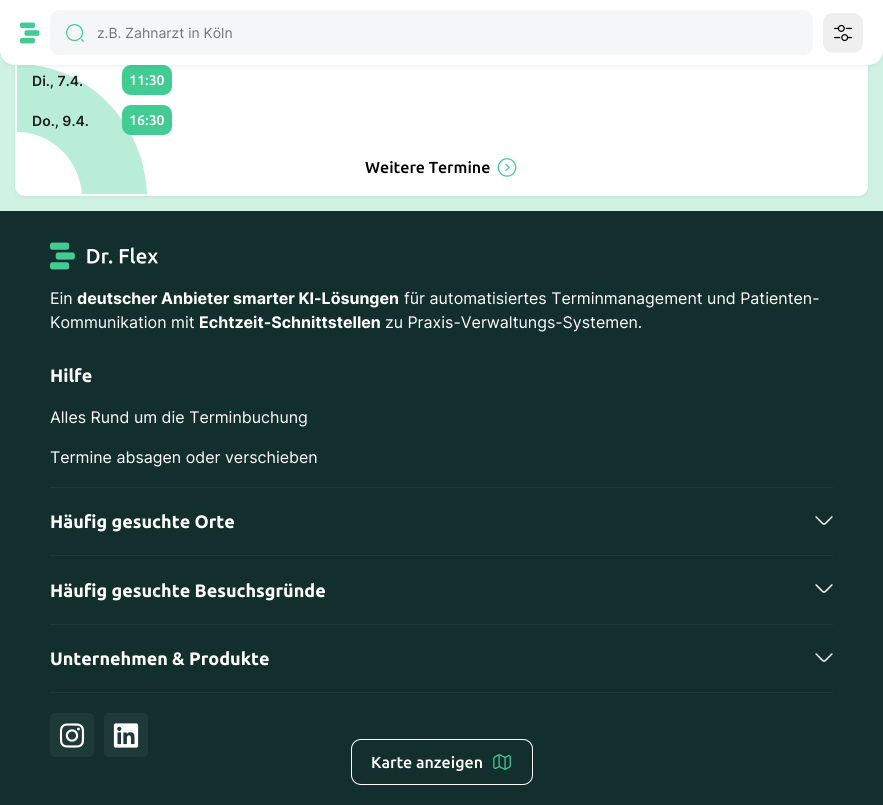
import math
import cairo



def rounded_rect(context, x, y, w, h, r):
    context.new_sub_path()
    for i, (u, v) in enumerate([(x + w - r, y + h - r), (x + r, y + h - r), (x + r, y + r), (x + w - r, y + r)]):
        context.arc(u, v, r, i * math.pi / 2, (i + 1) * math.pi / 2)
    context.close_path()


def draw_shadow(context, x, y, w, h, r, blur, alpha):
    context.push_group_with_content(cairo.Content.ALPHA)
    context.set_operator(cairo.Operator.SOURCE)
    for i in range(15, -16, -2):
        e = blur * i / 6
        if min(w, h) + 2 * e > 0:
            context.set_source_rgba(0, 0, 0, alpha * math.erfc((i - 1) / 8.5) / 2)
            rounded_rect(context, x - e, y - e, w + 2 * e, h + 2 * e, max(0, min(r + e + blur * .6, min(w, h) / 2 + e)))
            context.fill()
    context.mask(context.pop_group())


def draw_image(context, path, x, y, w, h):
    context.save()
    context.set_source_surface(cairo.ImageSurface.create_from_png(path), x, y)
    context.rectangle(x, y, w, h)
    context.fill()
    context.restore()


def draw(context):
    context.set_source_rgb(207 / 255, 242 / 255, 227 / 255)
    context.paint()
    context.set_source_rgb(34 / 255, 85 / 255, 80 / 255)
    draw_shadow(context, 15, -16, 853, 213, 10, 2, 0.1)
    context.set_source_rgb(1, 1, 1)
    rounded_rect(context, 15, -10, 853, 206, 10)
    context.fill()
    context.set_source_rgb(186 / 255, 237 / 255, 216 / 255)
    context.set_fill_rule(cairo.FillRule.EVEN_ODD)
    context.new_path()
    context.move_to(147, 194)
    context.curve_to(144, 122, 87, 64, 17, 64)
    context.line_to(17, 132)
    context.curve_to(51, 132, 79, 159, 82, 194)
    context.close_path()
    context.fill()
    context.set_source_rgb(66 / 255, 204 / 255, 147 / 255)
    rounded_rect(context, 122, 65, 50, 30, 9)
    context.fill()
    context.set_source_rgb(34 / 255, 85 / 255, 80 / 255)
    draw_shadow(context, 0, 1, 883, 65, 15, 2, 0.1)
    context.set_source_rgb(1, 1, 1)
    context.new_path()
    context.move_to(0, 0)
    context.line_to(883, 0)
    context.line_to(883, 50)
    context.curve_to(883, 58.5, 876.5, 65, 868, 65)
    context.line_to(15, 65)
    context.curve_to(6.5, 65, 0, 58.5, 0, 50)
    context.close_path()
    context.fill()
    draw_image(context, "images/1.png", 20, 22, 20, 22)
    context.set_source_rgb(244 / 255, 246 / 255, 247 / 255)
    rounded_rect(context, 50, 10, 763, 45, 10)
    context.fill()
    draw_image(context, "images/2.png", 66, 24, 18, 18)
    context.set_source_rgb(239 / 255, 239 / 255, 239 / 255)
    rounded_rect(context, 823, 13, 40, 40, 10)
    context.fill()
    draw_image(context, "images/3.png", 834, 24, 18, 18)
    context.set_source_rgb(66 / 255, 204 / 255, 147 / 255)
    rounded_rect(context, 122, 105, 50, 30, 9)
    context.fill()
    draw_image(context, "images/4.png", 497, 158, 20, 19)
    context.set_source_rgb(19 / 255, 47 / 255, 45 / 255)
    context.rectangle(0, 211, 883, 594)
    context.fill()
    rounded_rect(context, 351.5, 739.5, 181, 45, 9.5)
    context.set_source_rgb(1, 1, 1)
    context.set_line_width(1)
    context.stroke()
    draw_image(context, "images/5.png", 493, 754, 18, 16)
    context.set_source_rgb(30 / 255, 57 / 255, 55 / 255)
    context.rectangle(50, 487, 783, 1)
    context.fill()
    draw_image(context, "images/6.png", 50, 242, 25, 28)
    draw_image(context, "images/7.png", 87, 247, 71, 17)
    context.rectangle(50, 555, 783, 1)
    context.fill()
    draw_image(context, "images/8.png", 815, 516, 18, 9)
    context.rectangle(50, 624, 783, 1)
    context.fill()
    draw_image(context, "images/8.png", 815, 584, 18, 9)
    context.rectangle(50, 692, 783, 1)
    context.fill()
    draw_image(context, "images/8.png", 815, 653, 18, 9)
    context.set_source_rgb(31 / 255, 57 / 255, 56 / 255)
    rounded_rect(context, 50, 713, 44, 44, 5)
    context.fill()
    draw_image(context, "images/9.png", 59, 723, 26, 25)
    rounded_rect(context, 104, 713, 44, 44, 5)
    context.fill()
    draw_image(context, "images/10.png", 113, 723, 26, 25)
    context.select_font_face("Inter")
    context.set_font_size(14)
    context.set_source_rgb(117 / 255, 117 / 255, 117 / 255)
    context.move_to(97, 38)
    context.show_text("z.B. Zahnarzt in Köln")
    context.select_font_face("Inter SemiBold")
    context.set_source_rgb(30 / 255, 31 / 255, 31 / 255)
    context.move_to(32, 86)
    context.show_text("Di., 7.4.")
    context.select_font_face("Ubuntu Medium")
    context.set_source_rgb(1, 1, 1)
    context.move_to(129, 85)
    context.show_text("11:30")
    context.select_font_face("Inter SemiBold")
    context.set_source_rgb(30 / 255, 31 / 255, 31 / 255)
    context.move_to(32, 126)
    context.show_text("Do., 9.4.")
    context.select_font_face("Ubuntu Medium")
    context.set_source_rgb(1, 1, 1)
    context.move_to(129, 125)
    context.show_text("16:30")
    context.set_font_size(16)
    context.set_source_rgb(0, 0, 0)
    context.move_to(365, 173)
    context.show_text("Weitere Termine")
    context.set_source_rgb(1, 1, 1)
    context.move_to(371, 768)
    context.show_text("Karte anzeigen")
    context.select_font_face("Inter")
    context.move_to(50, 304)
    context.show_text("Ein")
    context.select_font_face("Inter", cairo.FontSlant.NORMAL, cairo.FontWeight.BOLD)
    context.move_to(77, 304)
    context.show_text("deutscher Anbieter smarter KI-Lösungen")
    context.select_font_face("Inter")
    context.move_to(404, 304)
    context.show_text("für automatisiertes Terminmanagement und Patienten-")
    context.move_to(50, 328)
    context.show_text("Kommunikation mit")
    context.select_font_face("Inter", cairo.FontSlant.NORMAL, cairo.FontWeight.BOLD)
    context.move_to(199, 328)
    context.show_text("Echtzeit-Schnittstellen")
    context.select_font_face("Inter")
    context.move_to(385, 328)
    context.show_text("zu Praxis-Verwaltungs-Systemen.")
    context.select_font_face("Ubuntu", cairo.FontSlant.NORMAL, cairo.FontWeight.BOLD)
    context.set_font_size(18)
    context.move_to(50, 382)
    context.show_text("Hilfe")
    context.select_font_face("Inter")
    context.set_font_size(16)
    context.move_to(50, 423)
    context.show_text("Alles Rund um die Terminbuchung")
    context.move_to(50, 463)
    context.show_text("Termine absagen oder verschieben")
    context.select_font_face("Ubuntu", cairo.FontSlant.NORMAL, cairo.FontWeight.BOLD)
    context.set_font_size(18)
    context.move_to(50, 528)
    context.show_text("Häufig gesuchte Orte")
    context.move_to(50, 597)
    context.show_text("Häufig gesuchte Besuchsgründe")
    context.move_to(50, 665)
    context.show_text("Unternehmen & Produkte")


surface = cairo.ImageSurface(cairo.Format.RGB24, 883, 805)
context = cairo.Context(surface)
options = cairo.FontOptions()
options.set_hint_metrics(cairo.HintMetrics.OFF)
options.set_hint_style(cairo.HintStyle.NONE)
context.set_font_options(options)
context.set_miter_limit(4)
draw(context)
surface.write_to_png("out.png")
